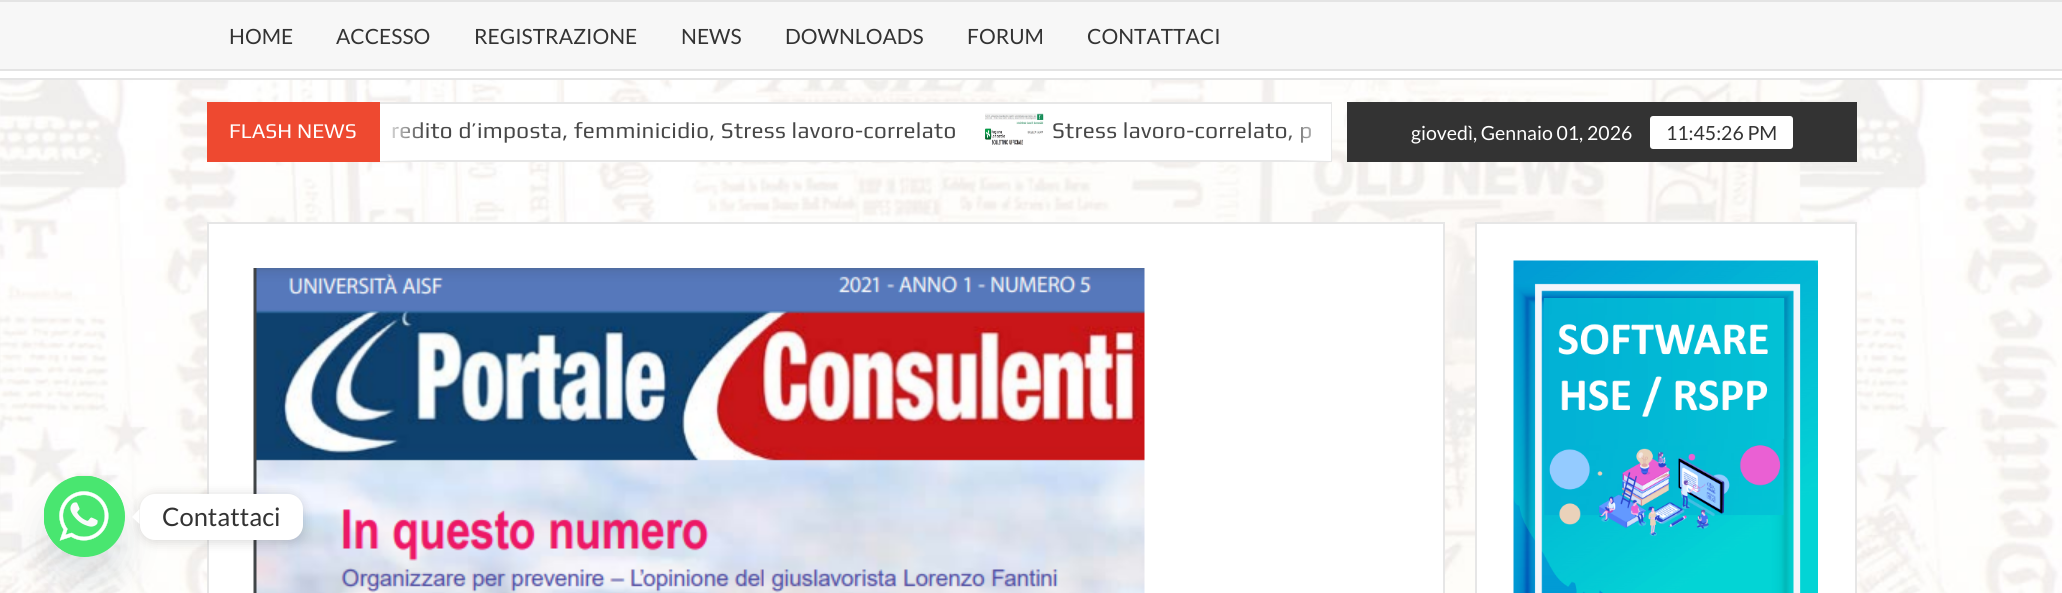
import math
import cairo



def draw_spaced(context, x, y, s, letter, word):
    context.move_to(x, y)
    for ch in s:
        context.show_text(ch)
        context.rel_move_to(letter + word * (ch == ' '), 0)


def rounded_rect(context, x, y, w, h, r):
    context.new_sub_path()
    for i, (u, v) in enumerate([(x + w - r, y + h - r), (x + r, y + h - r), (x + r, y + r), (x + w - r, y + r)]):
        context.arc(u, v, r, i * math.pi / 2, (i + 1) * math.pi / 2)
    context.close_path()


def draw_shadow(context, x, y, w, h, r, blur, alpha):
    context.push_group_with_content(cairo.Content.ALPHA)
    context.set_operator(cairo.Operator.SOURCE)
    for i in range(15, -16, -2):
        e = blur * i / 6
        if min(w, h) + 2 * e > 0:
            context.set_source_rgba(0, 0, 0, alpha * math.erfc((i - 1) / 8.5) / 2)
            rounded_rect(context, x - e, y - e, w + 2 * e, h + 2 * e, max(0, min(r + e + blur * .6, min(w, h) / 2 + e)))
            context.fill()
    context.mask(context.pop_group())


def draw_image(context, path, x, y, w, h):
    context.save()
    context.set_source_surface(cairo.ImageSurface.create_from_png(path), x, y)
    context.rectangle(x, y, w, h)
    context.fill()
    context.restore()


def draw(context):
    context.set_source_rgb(1, 1, 1)
    context.paint()
    draw_image(context, "images/1.png", 0, 80, 2062, 513)
    context.set_source_rgb(228 / 255, 228 / 255, 228 / 255)
    context.new_path()
    context.move_to(0, 78)
    context.line_to(0, 80)
    context.line_to(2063, 80)
    context.line_to(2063, 2)
    context.line_to(2062, 2)
    context.line_to(2062, 78)
    context.close_path()
    context.fill()
    context.set_source_rgb(247 / 255, 247 / 255, 247 / 255)
    context.rectangle(0, 2, 2062, 67)
    context.fill()
    context.set_source_rgb(228 / 255, 228 / 255, 228 / 255)
    context.rectangle(0, 0, 2062, 2)
    context.fill()
    context.rectangle(0, 69, 2062, 2)
    context.fill()
    context.set_source_rgb(1, 1, 1)
    context.rectangle(380, 104, 950, 56)
    context.fill()
    context.rectangle(208, 103, 1123, 58)
    context.set_source_rgb(231 / 255, 231 / 255, 231 / 255)
    context.stroke()
    context.set_source_rgb(238 / 255, 73 / 255, 48 / 255)
    context.rectangle(207, 102, 173, 60)
    context.fill()
    draw_image(context, "images/2.png", 985, 113, 59, 32)
    context.set_source_rgb(51 / 255, 51 / 255, 51 / 255)
    context.rectangle(1347, 102, 510, 60)
    context.fill()
    context.set_source_rgb(1, 1, 1)
    rounded_rect(context, 1650, 116, 143, 33, 3)
    context.fill()
    context.rectangle(208, 223, 1236, 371)
    context.fill_preserve()
    context.set_source_rgb(230 / 255, 230 / 255, 230 / 255)
    context.stroke()
    draw_image(context, "images/3.png", 253, 268, 892, 325)
    context.set_source_rgb(1, 1, 1)
    context.rectangle(1476, 223, 380, 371)
    context.fill_preserve()
    context.set_source_rgb(230 / 255, 230 / 255, 230 / 255)
    context.stroke()
    draw_image(context, "images/4.png", 1513, 260, 305, 333)
    context.set_source_rgb(73 / 255, 104 / 255, 126 / 255)
    draw_shadow(context, 44, 500, 81, 81, 40.5, 18, 0.16)
    context.set_source_rgb(73 / 255, 230 / 255, 112 / 255)
    context.arc(84.5, 516.5, 40.5, 0, 2 * math.pi)
    context.fill()
    draw_image(context, "images/5.png", 44, 476, 81, 81)
    context.set_source_rgb(0, 0, 0)
    draw_shadow(context, 140, 495, 163, 47, 15, 6, 0.15)
    context.set_source_rgb(1, 1, 1)
    rounded_rect(context, 140, 494, 163, 46, 15)
    context.fill()
    context.new_path()
    context.move_to(139.5, 509)
    context.line_to(139.5, 524)
    context.line_to(132, 517)
    context.close_path()
    context.fill()
    context.select_font_face("Lato")
    context.set_font_size(21)
    context.set_source_rgb(51 / 255, 51 / 255, 51 / 255)
    context.move_to(229, 44)
    context.show_text("HOME")
    context.move_to(336, 44)
    context.show_text("ACCESSO")
    context.move_to(474, 44)
    context.show_text("REGISTRAZIONE")
    context.move_to(681, 44)
    context.show_text("NEWS")
    context.move_to(785, 44)
    context.show_text("DOWNLOADS")
    context.move_to(967, 44)
    context.show_text("FORUM")
    context.move_to(1087, 44)
    context.show_text("CONTATTACI")
    context.select_font_face("Play")
    context.set_source_rgb(1, 1, 1)
    context.move_to(229, 138)
    context.show_text("FLASH NEWS")
    context.set_font_size(22.5)
    context.set_source_rgb(71 / 255, 71 / 255, 71 / 255)
    draw_spaced(context, 391, 138, "redito d’imposta, femminicidio, Stress lavoro-correlato", 0.3, 0)
    gradient = cairo.LinearGradient(380, 132, 425, 132)
    gradient.add_color_stop_rgba(0, 1, 1, 1, 1)
    gradient.add_color_stop_rgba(1, 1, 1, 1, 0)
    context.set_source(gradient)
    context.rectangle(380, 122, 43, 39)
    context.fill()
    context.set_source_rgb(71 / 255, 71 / 255, 71 / 255)
    draw_spaced(context, 1052, 138, "Stress lavoro-correlato, p", 0.3, 0)
    gradient = cairo.LinearGradient(1286, 132, 1331, 132)
    gradient.add_color_stop_rgba(0, 1, 1, 1, 0)
    gradient.add_color_stop_rgba(1, 1, 1, 1, 1)
    context.set_source(gradient)
    context.rectangle(1289, 104, 42, 57)
    context.fill()
    context.select_font_face("Lato")
    context.set_font_size(19.5)
    context.set_source_rgb(1, 1, 1)
    context.move_to(1411, 140)
    context.show_text("giovedì, Gennaio 01, 2026")
    context.set_source_rgb(51 / 255, 51 / 255, 51 / 255)
    context.move_to(1666, 140)
    context.show_text("11:45:26 PM")
    context.set_font_size(25.5)
    context.move_to(162, 526)
    context.show_text("Contattaci")


surface = cairo.ImageSurface(cairo.Format.RGB24, 2062, 593)
context = cairo.Context(surface)
options = cairo.FontOptions()
options.set_hint_metrics(cairo.HintMetrics.OFF)
options.set_hint_style(cairo.HintStyle.NONE)
context.set_font_options(options)
context.set_miter_limit(4)
draw(context)
surface.write_to_png("out.png")
